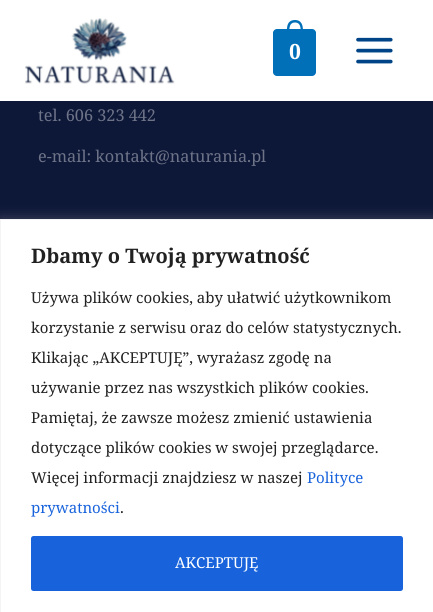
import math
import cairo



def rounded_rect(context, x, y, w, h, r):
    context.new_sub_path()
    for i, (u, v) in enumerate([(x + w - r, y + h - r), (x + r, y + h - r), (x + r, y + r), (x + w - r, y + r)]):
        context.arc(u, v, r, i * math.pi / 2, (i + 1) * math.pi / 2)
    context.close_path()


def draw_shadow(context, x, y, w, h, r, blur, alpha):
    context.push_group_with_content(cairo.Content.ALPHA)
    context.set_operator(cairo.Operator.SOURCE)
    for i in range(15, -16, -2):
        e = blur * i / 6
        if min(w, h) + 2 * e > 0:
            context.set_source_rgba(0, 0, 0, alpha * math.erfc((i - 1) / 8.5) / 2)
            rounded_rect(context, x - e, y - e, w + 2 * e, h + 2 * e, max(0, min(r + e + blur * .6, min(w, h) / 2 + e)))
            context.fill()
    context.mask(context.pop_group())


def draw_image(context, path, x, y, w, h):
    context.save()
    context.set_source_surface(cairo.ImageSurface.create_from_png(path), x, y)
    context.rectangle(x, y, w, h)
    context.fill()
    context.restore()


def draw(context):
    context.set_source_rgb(13 / 255, 23 / 255, 56 / 255)
    context.paint()
    context.set_source_rgb(1, 1, 1)
    context.rectangle(0, 0, 433, 101)
    context.fill()
    draw_image(context, "images/1.png", 25, 18, 150, 66)
    context.set_source_rgb(1 / 255, 112 / 255, 185 / 255)
    rounded_rect(context, 273, 29, 43, 47, 4)
    context.fill()
    rounded_rect(context, 274.5, 31.5, 40, 41, 2.5)
    context.fill_preserve()
    context.set_line_width(3)
    context.stroke()
    context.set_fill_rule(cairo.FillRule.EVEN_ODD)
    context.new_path()
    context.move_to(295, 20)
    context.curve_to(304.5, 20, 303, 31, 303, 37.5)
    context.line_to(287, 37.5)
    context.curve_to(287, 31, 285, 20, 295, 20)
    context.close_path()
    context.move_to(295, 22.5)
    context.curve_to(302.5, 22.5, 300.5, 32.5, 300.5, 37.5)
    context.line_to(289.5, 37.5)
    context.curve_to(289.5, 32.5, 287.5, 22.5, 295, 22.5)
    context.close_path()
    context.fill()
    draw_image(context, "images/2.png", 356, 37, 37, 27)
    context.set_source_rgb(172 / 255, 171 / 255, 171 / 255)
    draw_shadow(context, 0, 218, 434, 393, 0, 6, 0.3)
    context.set_source_rgb(1, 1, 1)
    context.rectangle(0.5, 219.5, 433, 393)
    context.fill_preserve()
    context.set_source_rgb(244 / 255, 244 / 255, 244 / 255)
    context.set_line_width(1)
    context.stroke()
    context.set_source_rgb(24 / 255, 99 / 255, 220 / 255)
    rounded_rect(context, 32.5, 537.5, 369, 52, 1)
    context.fill_preserve()
    context.set_line_width(3)
    context.stroke()
    context.select_font_face("Noto Serif", cairo.FontSlant.NORMAL, cairo.FontWeight.BOLD)
    context.set_font_size(21)
    context.set_source_rgb(1, 1, 1)
    context.move_to(289, 59)
    context.show_text("0")
    context.select_font_face("Noto Serif")
    context.set_font_size(16.25)
    context.set_source_rgb(110 / 255, 116 / 255, 136 / 255)
    context.move_to(38, 121)
    context.show_text("tel. 606 323 442")
    context.move_to(38, 162)
    context.show_text("e-mail: kontakt@naturania.pl")
    context.select_font_face("Noto Serif", cairo.FontSlant.NORMAL, cairo.FontWeight.BOLD)
    context.set_font_size(20)
    context.set_source_rgb(33 / 255, 33 / 255, 33 / 255)
    context.move_to(31, 263)
    context.show_text("Dbamy o Twoją prywatność")
    context.select_font_face("Noto Serif")
    context.set_font_size(15)
    context.move_to(31, 303)
    context.show_text("Używa plików cookies, aby ułatwić użytkownikom")
    context.move_to(31, 333)
    context.show_text("korzystanie z serwisu oraz do celów statystycznych.")
    context.move_to(31, 363)
    context.show_text("Klikając „AKCEPTUJĘ”, wyrażasz zgodę na")
    context.move_to(31, 393)
    context.show_text("używanie przez nas wszystkich plików cookies.")
    context.move_to(31, 423)
    context.show_text("Pamiętaj, że zawsze możesz zmienić ustawienia")
    context.move_to(31, 453)
    context.show_text("dotyczące plików cookies w swojej przeglądarce.")
    context.move_to(31, 483)
    context.show_text("Więcej informacji znajdziesz w naszej")
    context.set_source_rgb(24 / 255, 99 / 255, 220 / 255)
    context.move_to(307, 483)
    context.show_text("Polityce")
    context.move_to(31, 513)
    context.show_text("prywatności")
    context.set_source_rgb(33 / 255, 33 / 255, 33 / 255)
    context.move_to(120, 513)
    context.show_text(".")
    context.set_source_rgb(1, 1, 1)
    context.move_to(175, 568)
    context.show_text("AKCEPTUJĘ")


surface = cairo.ImageSurface(cairo.Format.RGB24, 433, 612)
context = cairo.Context(surface)
options = cairo.FontOptions()
options.set_hint_metrics(cairo.HintMetrics.OFF)
options.set_hint_style(cairo.HintStyle.NONE)
context.set_font_options(options)
context.set_miter_limit(4)
draw(context)
surface.write_to_png("out.png")
